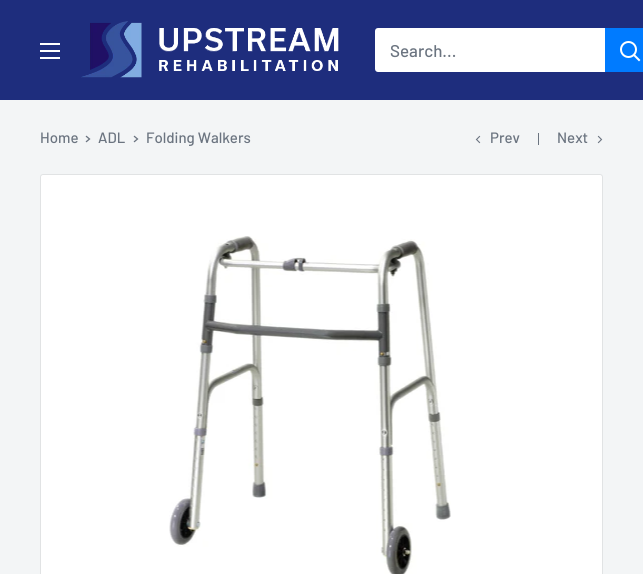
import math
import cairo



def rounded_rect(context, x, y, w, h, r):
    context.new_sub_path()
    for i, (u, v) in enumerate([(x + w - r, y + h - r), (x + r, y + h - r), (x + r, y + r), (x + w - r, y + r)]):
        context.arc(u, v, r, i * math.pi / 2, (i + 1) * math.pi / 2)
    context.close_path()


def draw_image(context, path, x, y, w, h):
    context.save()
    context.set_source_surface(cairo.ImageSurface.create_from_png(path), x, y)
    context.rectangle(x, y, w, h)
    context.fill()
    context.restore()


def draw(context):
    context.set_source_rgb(243 / 255, 245 / 255, 246 / 255)
    context.paint()
    context.set_source_rgb(30 / 255, 45 / 255, 125 / 255)
    context.rectangle(0, 0, 643, 100)
    context.fill()
    draw_image(context, "images/1.png", 40, 43, 20, 16)
    draw_image(context, "images/2.png", 81, 21, 258, 57)
    context.set_source_rgb(1, 1, 1)
    rounded_rect(context, 375, 28, 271, 44, 3)
    context.fill()
    context.set_source_rgb(0, 123 / 255, 1)
    context.rectangle(605, 28, 38, 44)
    context.fill()
    context.new_path()
    context.move_to(639, 60)
    context.line_to(634, 55)
    context.set_source_rgb(1, 1, 1)
    context.set_line_cap(cairo.LineCap.SQUARE)
    context.stroke()
    context.arc(628.5, 49.5, 7.5, 0, 2 * math.pi)
    context.set_line_cap(cairo.LineCap.BUTT)
    context.stroke()
    context.new_path()
    context.move_to(86.5, 136.5)
    context.line_to(89.5, 139)
    context.line_to(86.5, 141.5)
    context.move_to(134.5, 136.5)
    context.line_to(137.5, 139)
    context.line_to(134.5, 141.5)
    context.set_source_rgb(107 / 255, 116 / 255, 128 / 255)
    context.set_line_width(1.3)
    context.set_line_cap(cairo.LineCap.SQUARE)
    context.stroke()
    context.new_path()
    context.move_to(479.5, 142.5)
    context.line_to(476.5, 139.5)
    context.line_to(479.5, 136.5)
    context.set_line_width(1.1)
    context.stroke()
    context.rectangle(538, 133, 1, 12)
    context.fill()
    context.new_path()
    context.move_to(598.5, 136.5)
    context.line_to(601.5, 139.5)
    context.line_to(598.5, 142.5)
    context.stroke()
    context.set_source_rgb(1, 1, 1)
    rounded_rect(context, 40.5, 174.5, 562, 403, 2.5)
    context.fill_preserve()
    context.set_source_rgb(225 / 255, 227 / 255, 228 / 255)
    context.set_line_width(1)
    context.set_line_cap(cairo.LineCap.BUTT)
    context.stroke()
    draw_image(context, "images/3.png", 169, 236, 282, 338)
    context.select_font_face("Barlow Medium")
    context.set_font_size(17)
    context.set_source_rgb(107 / 255, 116 / 255, 128 / 255)
    context.move_to(390, 57)
    context.show_text("Search...")
    context.set_font_size(15)
    context.move_to(40, 143)
    context.show_text("Home")
    context.move_to(98, 143)
    context.show_text("ADL")
    context.move_to(146, 143)
    context.show_text("Folding Walkers")
    context.move_to(490, 143)
    context.show_text("Prev")
    context.move_to(557, 143)
    context.show_text("Next")


surface = cairo.ImageSurface(cairo.Format.RGB24, 643, 574)
context = cairo.Context(surface)
options = cairo.FontOptions()
options.set_hint_metrics(cairo.HintMetrics.OFF)
options.set_hint_style(cairo.HintStyle.NONE)
context.set_font_options(options)
context.set_miter_limit(4)
draw(context)
surface.write_to_png("out.png")
